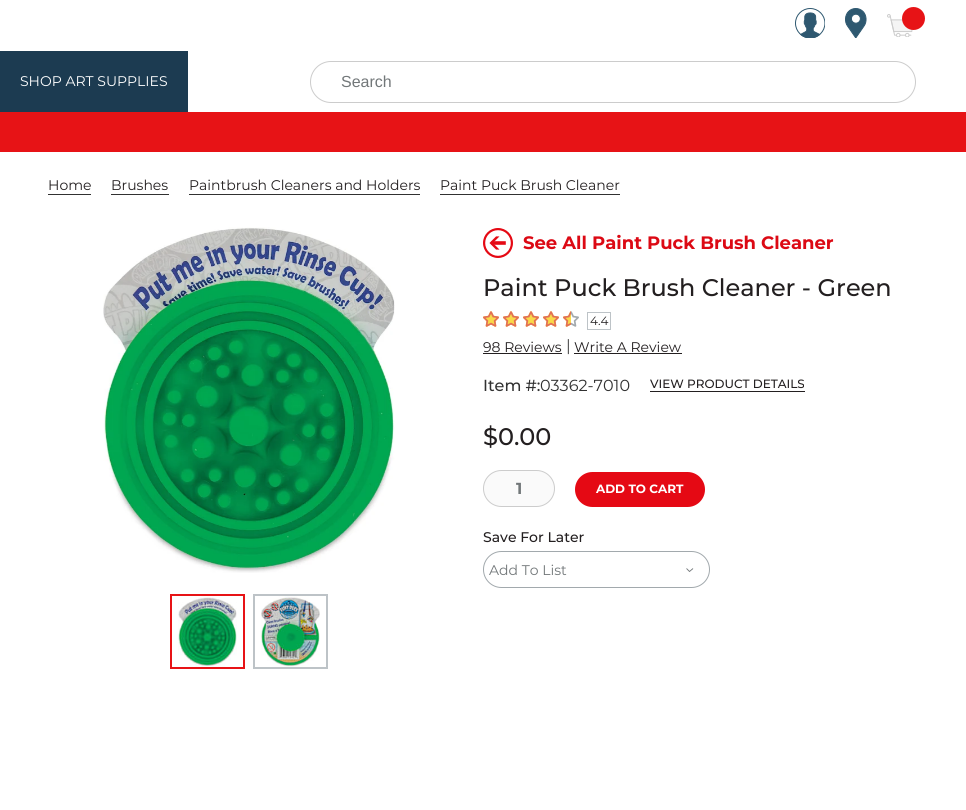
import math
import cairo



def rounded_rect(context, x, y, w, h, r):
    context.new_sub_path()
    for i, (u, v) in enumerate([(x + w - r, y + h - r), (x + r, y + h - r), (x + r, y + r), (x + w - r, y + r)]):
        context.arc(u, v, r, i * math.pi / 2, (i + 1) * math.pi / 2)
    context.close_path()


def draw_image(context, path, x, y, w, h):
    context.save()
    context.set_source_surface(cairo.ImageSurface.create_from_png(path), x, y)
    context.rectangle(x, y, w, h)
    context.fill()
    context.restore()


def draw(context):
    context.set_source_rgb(1, 1, 1)
    context.paint()
    draw_image(context, "images/1.png", 795, 8, 30, 30)
    draw_image(context, "images/2.png", 845, 8, 22, 30)
    draw_image(context, "images/3.png", 887, 14, 26, 23)
    context.set_source_rgb(231 / 255, 19 / 255, 22 / 255)
    context.arc(913.5, 18.5, 11.5, 0, 2 * math.pi)
    context.fill()
    context.set_source_rgb(28 / 255, 59 / 255, 81 / 255)
    context.rectangle(0, 51, 188, 61)
    context.fill()
    rounded_rect(context, 310.5, 61.5, 605, 41, 20.5)
    context.set_source_rgb(204 / 255, 204 / 255, 204 / 255)
    context.set_line_width(1)
    context.stroke()
    context.set_source_rgb(231 / 255, 19 / 255, 22 / 255)
    context.rectangle(0, 112, 966, 40)
    context.fill()
    context.set_source_rgb(49 / 255, 49 / 255, 49 / 255)
    context.rectangle(48, 194, 43, 1)
    context.fill()
    context.rectangle(111, 194, 58, 1)
    context.fill()
    context.rectangle(189, 194, 231, 1)
    context.fill()
    context.rectangle(440, 194, 180, 1)
    context.fill()
    draw_image(context, "images/4.png", 103, 227, 292, 346)
    context.rectangle(171, 595, 73, 73)
    context.set_source_rgb(231 / 255, 19 / 255, 22 / 255)
    context.set_line_width(2)
    context.stroke()
    draw_image(context, "images/5.png", 178, 596, 59, 71)
    context.rectangle(254, 595, 73, 73)
    context.set_source_rgb(189 / 255, 195 / 255, 199 / 255)
    context.stroke()
    draw_image(context, "images/6.png", 261, 596, 59, 71)
    draw_image(context, "images/7.png", 483, 228, 30, 30)
    draw_image(context, "images/8.png", 483, 311, 16, 16)
    draw_image(context, "images/8.png", 503, 311, 16, 16)
    draw_image(context, "images/8.png", 523, 311, 16, 16)
    draw_image(context, "images/8.png", 543, 311, 16, 16)
    draw_image(context, "images/9.png", 563, 311, 16, 16)
    context.rectangle(587.5, 312.5, 23, 17)
    context.set_line_width(1)
    context.stroke()
    context.set_source_rgb(35 / 255, 31 / 255, 32 / 255)
    context.rectangle(483, 353, 79, 1)
    context.fill()
    context.rectangle(574, 353, 108, 1)
    context.fill()
    context.rectangle(650, 391, 155, 1)
    context.fill()
    context.set_source_rgb(250 / 255, 250 / 255, 250 / 255)
    rounded_rect(context, 483.5, 470.5, 71, 36, 18)
    context.fill_preserve()
    context.set_source_rgb(204 / 255, 204 / 255, 204 / 255)
    context.stroke()
    context.set_source_rgb(229 / 255, 9 / 255, 20 / 255)
    rounded_rect(context, 575, 472, 130, 35, 17.5)
    context.fill()
    rounded_rect(context, 483.5, 551.5, 226, 36, 18)
    context.set_source_rgb(162 / 255, 169 / 255, 173 / 255)
    context.stroke()
    context.new_path()
    context.move_to(686.5, 568.5)
    context.line_to(689.5, 571.5)
    context.line_to(693, 568.5)
    context.set_source_rgb(114 / 255, 119 / 255, 121 / 255)
    context.set_line_width(0.9)
    context.stroke()
    context.select_font_face("Montserrat")
    context.set_font_size(14)
    context.set_source_rgb(1, 1, 1)
    context.move_to(20, 86)
    context.show_text("SHOP ART SUPPLIES")
    context.select_font_face("Liberation Sans")
    context.set_font_size(16)
    context.set_source_rgb(114 / 255, 119 / 255, 121 / 255)
    context.move_to(341, 87)
    context.show_text("Search")
    context.select_font_face("Montserrat")
    context.set_font_size(14)
    context.set_source_rgb(35 / 255, 31 / 255, 32 / 255)
    context.move_to(48, 190)
    context.show_text("Home")
    context.move_to(111, 190)
    context.show_text("Brushes")
    context.move_to(189, 190)
    context.show_text("Paintbrush Cleaners and Holders")
    context.move_to(440, 190)
    context.show_text("Paint Puck Brush Cleaner")
    context.select_font_face("Montserrat", cairo.FontSlant.NORMAL, cairo.FontWeight.BOLD)
    context.set_font_size(18)
    context.set_source_rgb(220 / 255, 9 / 255, 20 / 255)
    context.move_to(523, 249)
    context.show_text("See All Paint Puck Brush Cleaner")
    context.select_font_face("Montserrat Medium")
    context.set_font_size(24)
    context.set_source_rgb(35 / 255, 31 / 255, 32 / 255)
    context.move_to(483, 296)
    context.show_text("Paint Puck Brush Cleaner - Green")
    context.select_font_face("Montserrat")
    context.set_font_size(12)
    context.move_to(590, 325)
    context.show_text("4.4")
    context.set_font_size(14)
    context.move_to(483, 352)
    context.show_text("98 Reviews")
    context.set_font_size(16)
    context.set_source_rgb(68 / 255, 68 / 255, 68 / 255)
    context.move_to(566, 351)
    context.show_text("|")
    context.set_font_size(14)
    context.set_source_rgb(35 / 255, 31 / 255, 32 / 255)
    context.move_to(574, 352)
    context.show_text("Write A Review")
    context.select_font_face("Montserrat Medium")
    context.set_font_size(16)
    context.set_source_rgb(49 / 255, 49 / 255, 49 / 255)
    context.move_to(483, 391)
    context.show_text("Item #:")
    context.select_font_face("Montserrat")
    context.move_to(540, 391)
    context.show_text("03362-7010")
    context.select_font_face("Montserrat Medium")
    context.set_font_size(12)
    context.set_source_rgb(35 / 255, 31 / 255, 32 / 255)
    context.move_to(650, 388)
    context.show_text("VIEW PRODUCT DETAILS")
    context.set_font_size(24)
    context.move_to(483, 445)
    context.show_text("$0.00")
    context.select_font_face("Montserrat", cairo.FontSlant.NORMAL, cairo.FontWeight.BOLD)
    context.set_font_size(16)
    context.set_source_rgb(114 / 255, 119 / 255, 121 / 255)
    context.move_to(516, 494)
    context.show_text("1")
    context.set_font_size(12)
    context.set_source_rgb(1, 1, 1)
    context.move_to(596, 493)
    context.show_text("ADD TO CART")
    context.select_font_face("Montserrat Medium")
    context.set_font_size(14)
    context.set_source_rgb(35 / 255, 31 / 255, 32 / 255)
    context.move_to(483, 542)
    context.show_text("Save For Later")
    context.select_font_face("Montserrat")
    context.set_source_rgb(114 / 255, 119 / 255, 121 / 255)
    context.move_to(489, 575)
    context.show_text("Add To List")


surface = cairo.ImageSurface(cairo.Format.RGB24, 966, 810)
context = cairo.Context(surface)
options = cairo.FontOptions()
options.set_hint_metrics(cairo.HintMetrics.OFF)
options.set_hint_style(cairo.HintStyle.NONE)
context.set_font_options(options)
context.set_miter_limit(4)
draw(context)
surface.write_to_png("out.png")
